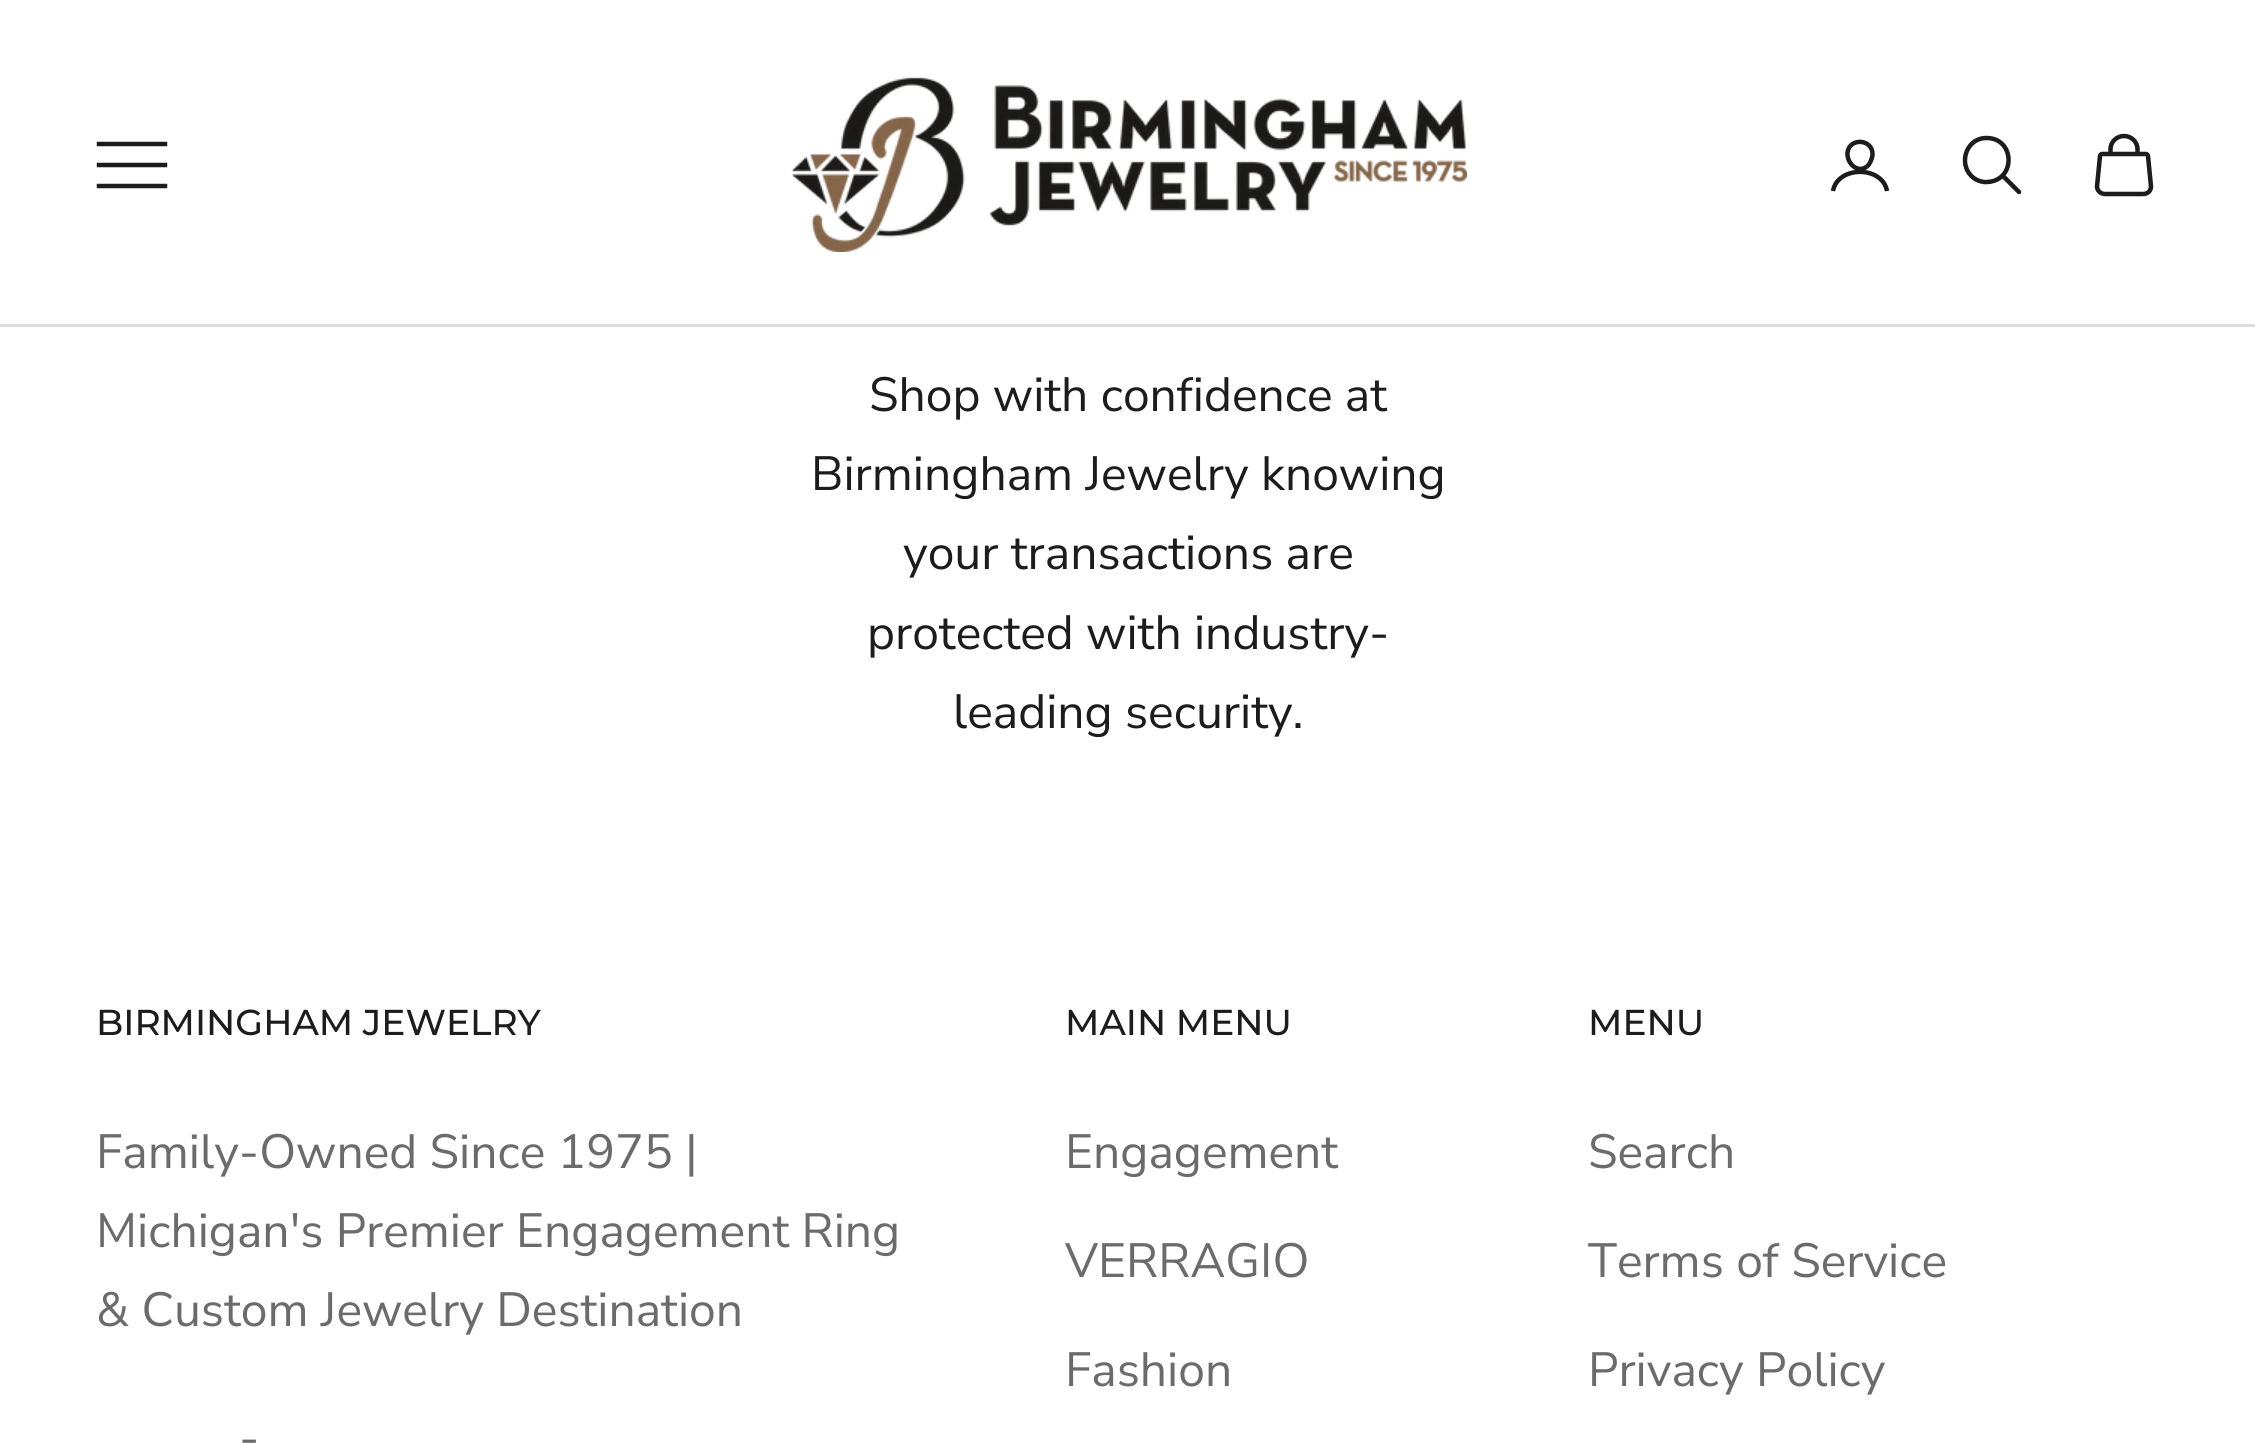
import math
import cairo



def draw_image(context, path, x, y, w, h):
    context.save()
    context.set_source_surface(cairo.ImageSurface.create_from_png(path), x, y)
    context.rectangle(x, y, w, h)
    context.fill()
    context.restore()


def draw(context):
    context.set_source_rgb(1, 1, 1)
    context.paint()
    context.set_source_rgb(221 / 255, 221 / 255, 221 / 255)
    context.rectangle(0, 324, 2255, 3)
    context.fill()
    context.new_path()
    context.move_to(99, 186)
    context.line_to(165, 186)
    context.move_to(99, 165)
    context.line_to(165, 165)
    context.move_to(99, 144)
    context.line_to(165, 144)
    context.set_source_rgb(28 / 255, 28 / 255, 28 / 255)
    context.set_line_width(4.5)
    context.set_line_cap(cairo.LineCap.SQUARE)
    context.stroke()
    draw_image(context, "images/1.png", 791, 77, 676, 175)
    context.new_path()
    context.move_to(1872.5, 155)
    context.curve_to(1872, 159, 1870.5, 162, 1868.5, 165)
    context.curve_to(1859, 175, 1846.5, 164, 1847.5, 152.5)
    context.curve_to(1849.5, 137, 1873.5, 139, 1872.5, 155)
    context.close_path()
    context.set_line_cap(cairo.LineCap.ROUND)
    context.set_line_join(cairo.LineJoin.ROUND)
    context.stroke()
    context.new_path()
    context.move_to(1833, 191)
    context.curve_to(1837.5, 165.5, 1882.5, 165.5, 1887, 191)
    context.set_line_cap(cairo.LineCap.BUTT)
    context.set_line_join(cairo.LineJoin.MITER)
    context.stroke()
    context.new_path()
    context.move_to(1987, 138)
    context.curve_to(1964.5, 137.5, 1956.5, 168, 1976, 179.5)
    context.curve_to(1979, 181, 1983.5, 182.5, 1987, 182)
    context.curve_to(2016, 181, 2015.5, 138.5, 1987, 138)
    context.close_path()
    context.stroke()
    context.new_path()
    context.move_to(2003.5, 176.5)
    context.line_to(2019, 192)
    context.set_line_cap(cairo.LineCap.ROUND)
    context.stroke()
    context.new_path()
    context.move_to(2102, 154)
    context.curve_to(2101, 154, 2100, 155, 2100, 156)
    context.line_to(2097, 186.5)
    context.curve_to(2097, 190.5, 2100.5, 194, 2105, 194)
    context.line_to(2143, 194)
    context.curve_to(2147.5, 194, 2151, 191, 2151, 186.5)
    context.line_to(2148, 156)
    context.curve_to(2148, 155, 2147, 154, 2146, 154)
    context.close_path()
    context.move_to(2110.5, 154)
    context.line_to(2110.5, 149)
    context.curve_to(2110.5, 142, 2116.5, 136, 2124, 136)
    context.curve_to(2131.5, 136, 2137.5, 142, 2137.5, 149)
    context.line_to(2137.5, 154)
    context.set_line_join(cairo.LineJoin.ROUND)
    context.stroke()
    context.select_font_face("Nunito Sans")
    context.set_font_size(48)
    context.move_to(869, 411)
    context.show_text("Shop with confidence at")
    context.move_to(811, 490)
    context.show_text("Birmingham Jewelry knowing")
    context.move_to(903, 569)
    context.show_text("your transactions are")
    context.move_to(867, 649)
    context.show_text("protected with industry-")
    context.move_to(953, 728)
    context.show_text("leading security.")
    context.select_font_face("Montserrat Medium")
    context.set_font_size(36)
    context.move_to(96, 1035)
    context.show_text("BIRMINGHAM JEWELRY")
    context.select_font_face("Nunito Sans")
    context.set_font_size(48)
    context.set_source_rgb(107 / 255, 107 / 255, 107 / 255)
    context.move_to(96, 1168)
    context.show_text("Family-Owned Since 1975 |")
    context.move_to(96, 1247)
    context.show_text("Michigan's Premier Engagement Ring")
    context.move_to(96, 1326)
    context.show_text("& Custom Jewelry Destination")
    context.move_to(239, 1454)
    context.show_text("-")
    context.select_font_face("Montserrat Medium")
    context.set_font_size(36)
    context.set_source_rgb(28 / 255, 28 / 255, 28 / 255)
    context.move_to(1065, 1035)
    context.show_text("MAIN MENU")
    context.select_font_face("Nunito Sans")
    context.set_font_size(48)
    context.set_source_rgb(107 / 255, 107 / 255, 107 / 255)
    context.move_to(1065, 1168)
    context.show_text("Engagement")
    context.move_to(1065, 1277)
    context.show_text("VERRAGIO")
    context.move_to(1065, 1386)
    context.show_text("Fashion")
    context.select_font_face("Montserrat Medium")
    context.set_font_size(36)
    context.set_source_rgb(28 / 255, 28 / 255, 28 / 255)
    context.move_to(1588, 1035)
    context.show_text("MENU")
    context.select_font_face("Nunito Sans")
    context.set_font_size(48)
    context.set_source_rgb(107 / 255, 107 / 255, 107 / 255)
    context.move_to(1588, 1168)
    context.show_text("Search")
    context.move_to(1588, 1277)
    context.show_text("Terms of Service")
    context.move_to(1588, 1386)
    context.show_text("Privacy Policy")


surface = cairo.ImageSurface(cairo.Format.RGB24, 2255, 1443)
context = cairo.Context(surface)
options = cairo.FontOptions()
options.set_hint_metrics(cairo.HintMetrics.OFF)
options.set_hint_style(cairo.HintStyle.NONE)
context.set_font_options(options)
context.set_miter_limit(4)
draw(context)
surface.write_to_png("out.png")
